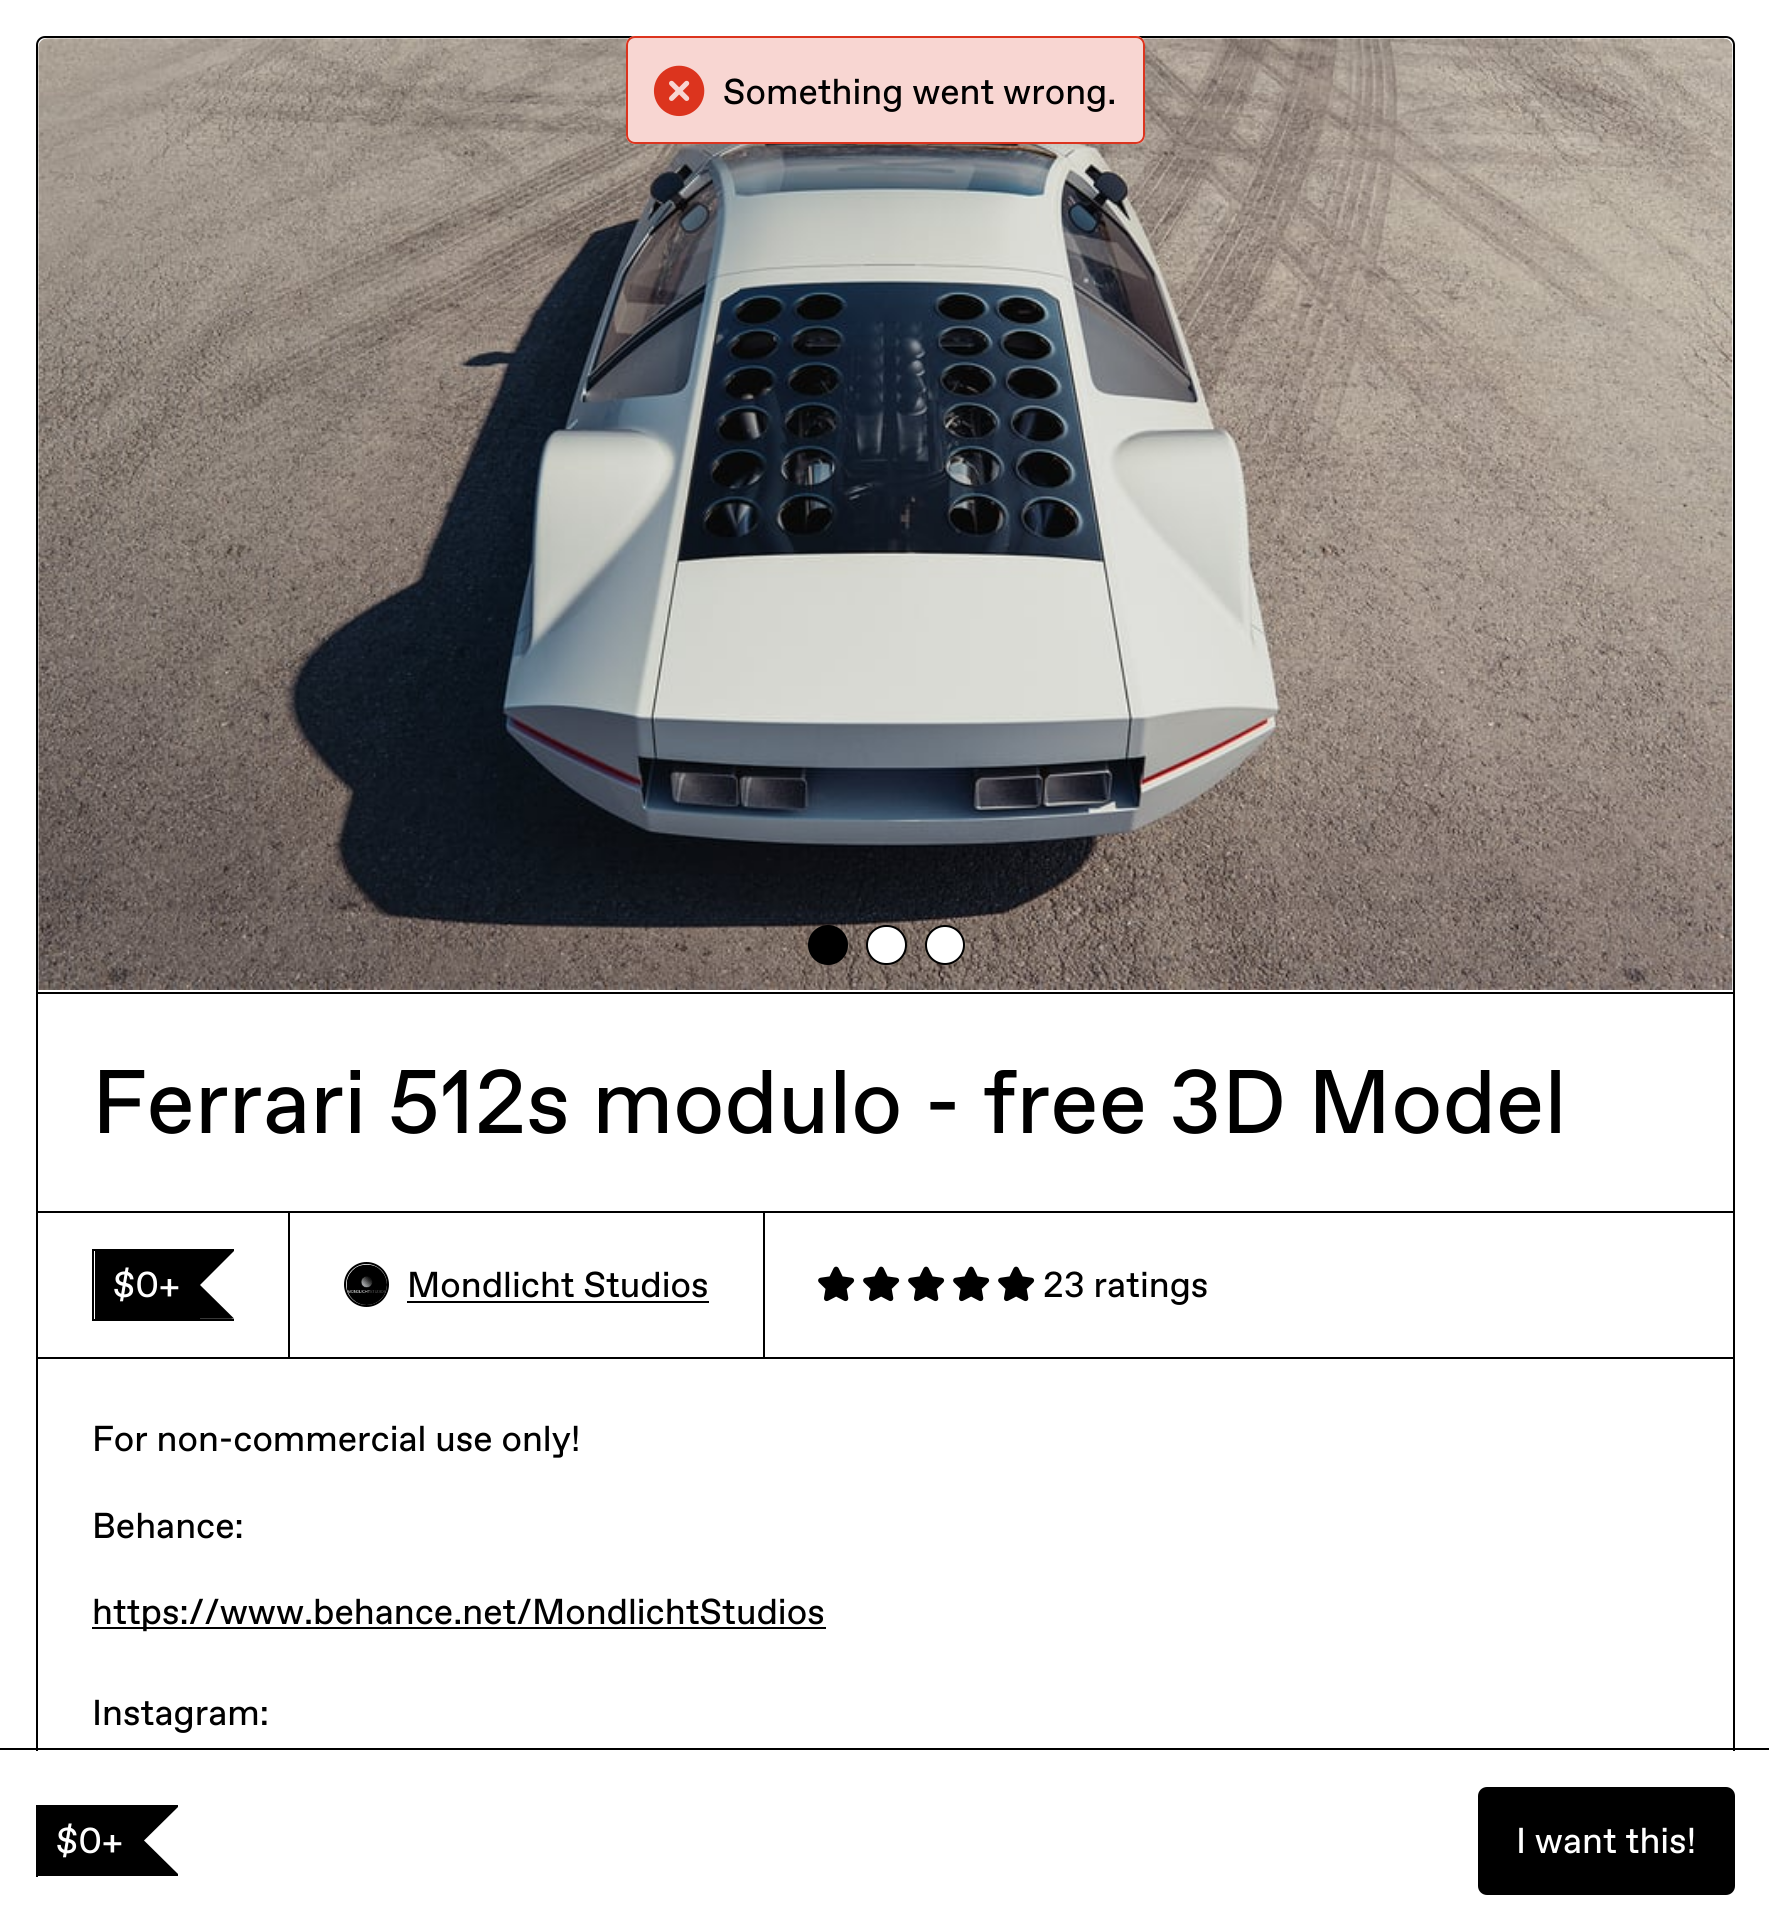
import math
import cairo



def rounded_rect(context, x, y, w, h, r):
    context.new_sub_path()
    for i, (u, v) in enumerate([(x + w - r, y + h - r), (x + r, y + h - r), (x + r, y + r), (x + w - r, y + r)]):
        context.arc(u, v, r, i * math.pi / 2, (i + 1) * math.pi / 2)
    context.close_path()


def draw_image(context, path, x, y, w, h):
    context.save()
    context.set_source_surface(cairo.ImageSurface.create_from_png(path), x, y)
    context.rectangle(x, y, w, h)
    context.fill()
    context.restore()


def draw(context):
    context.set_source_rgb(1, 1, 1)
    context.paint()
    rounded_rect(context, 37, 37, 1697, 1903, 8)
    context.set_source_rgb(0, 0, 0)
    context.stroke()
    draw_image(context, "images/2.png", 38, 38, 1695, 952)
    context.set_source_rgb(1, 1, 1)
    rounded_rect(context, 626, 36, 519, 108, 9)
    context.fill()
    context.set_source_rgba(220 / 255, 52 / 255, 30 / 255, 0.2)
    rounded_rect(context, 627, 37, 517, 106, 8)
    context.fill_preserve()
    context.set_source_rgb(220 / 255, 52 / 255, 30 / 255)
    context.stroke()
    draw_image(context, "images/1.png", 653, 65, 52, 52)
    context.set_source_rgb(0, 0, 0)
    context.rectangle(38, 992, 1695, 2)
    context.fill()
    context.arc(828, 945, 19, 0, 2 * math.pi)
    context.fill_preserve()
    context.stroke()
    context.set_source_rgb(1, 1, 1)
    rounded_rect(context, 867, 926, 39, 38, 19)
    context.fill_preserve()
    context.set_source_rgb(0, 0, 0)
    context.stroke()
    context.set_source_rgb(1, 1, 1)
    context.arc(945, 945, 19, 0, 2 * math.pi)
    context.fill_preserve()
    context.set_source_rgb(0, 0, 0)
    context.stroke()
    context.rectangle(765, 1211, 968, 2)
    context.fill()
    context.rectangle(37, 1212, 252, 146)
    context.stroke()
    context.rectangle(92, 1249, 142, 2)
    context.fill()
    context.rectangle(92, 1319, 142, 2)
    context.fill()
    context.rectangle(92, 1249, 2, 72)
    context.fill()
    context.rectangle(95, 1251, 103, 68)
    context.fill()
    context.new_path()
    context.move_to(198, 1251)
    context.line_to(234, 1251)
    context.line_to(200, 1285)
    context.close_path()
    context.fill()
    context.new_path()
    context.move_to(234, 1318.5)
    context.line_to(198, 1318.5)
    context.line_to(200, 1285)
    context.close_path()
    context.fill()
    context.rectangle(198, 1251, 2, 68)
    context.fill()
    context.new_path()
    context.move_to(232, 1318.5)
    context.line_to(196, 1318.5)
    context.line_to(198, 1285)
    context.close_path()
    context.fill()
    context.rectangle(289, 1212, 475, 146)
    context.stroke()
    context.arc(366.5, 1284.5, 21.5, 0, 2 * math.pi)
    context.stroke()
    draw_image(context, "images/3.png", 346, 1264, 41, 41)
    context.rectangle(407, 1301, 302, 2)
    context.fill()
    draw_image(context, "images/4.png", 818, 1266, 37, 36)
    draw_image(context, "images/4.png", 863, 1266, 37, 36)
    draw_image(context, "images/4.png", 908, 1266, 37, 36)
    draw_image(context, "images/4.png", 953, 1266, 37, 36)
    draw_image(context, "images/4.png", 998, 1266, 37, 36)
    context.rectangle(765, 1357, 968, 2)
    context.fill()
    context.rectangle(92, 1627, 734, 2)
    context.fill()
    context.new_path()
    context.move_to(0, 1748)
    context.line_to(0, 1750)
    context.line_to(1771, 1750)
    context.line_to(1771, 1928)
    context.line_to(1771, 1748)
    context.close_path()
    context.fill()
    context.set_source_rgb(1, 1, 1)
    context.rectangle(36, 1751, 1699, 179)
    context.fill()
    context.set_source_rgb(0, 0, 0)
    context.rectangle(36, 1805, 142, 2)
    context.fill()
    context.rectangle(36, 1874, 142, 2)
    context.fill()
    context.rectangle(36, 1805, 2, 72)
    context.fill()
    context.rectangle(38, 1807, 104, 67)
    context.fill()
    context.new_path()
    context.move_to(142, 1807)
    context.line_to(178, 1807)
    context.line_to(144, 1840.5)
    context.close_path()
    context.fill()
    context.new_path()
    context.move_to(178, 1874)
    context.line_to(142, 1874)
    context.line_to(144, 1840.5)
    context.close_path()
    context.fill()
    context.rectangle(142, 1807, 2, 67)
    context.fill()
    rounded_rect(context, 1479, 1788, 255, 106, 8)
    context.fill_preserve()
    context.stroke()
    context.select_font_face("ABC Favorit")
    context.set_font_size(36)
    context.move_to(723, 104)
    context.show_text("Something went wrong.")
    context.set_font_size(90)
    context.move_to(92, 1133)
    context.show_text("Ferrari 512s modulo - free 3D Model")
    context.set_font_size(36)
    context.set_source_rgb(1, 1, 1)
    context.move_to(113, 1297)
    context.show_text("$0+")
    context.set_source_rgb(0, 0, 0)
    context.move_to(407, 1297)
    context.show_text("Mondlicht Studios")
    context.move_to(1043, 1297)
    context.show_text("23 ratings")
    context.move_to(92, 1451)
    context.show_text("For non-commercial use only!")
    context.move_to(92, 1538)
    context.show_text("Behance:")
    context.move_to(92, 1624)
    context.show_text("https://www.behance.net/MondlichtStudios")
    context.move_to(92, 1725)
    context.show_text("Instagram:")
    context.set_source_rgb(1, 1, 1)
    context.move_to(56, 1853)
    context.show_text("$0+")
    context.move_to(1516, 1853)
    context.show_text("I want this!")


surface = cairo.ImageSurface(cairo.Format.RGB24, 1769, 1930)
context = cairo.Context(surface)
options = cairo.FontOptions()
options.set_hint_metrics(cairo.HintMetrics.OFF)
options.set_hint_style(cairo.HintStyle.NONE)
context.set_font_options(options)
context.set_miter_limit(4)
draw(context)
surface.write_to_png("out.png")
